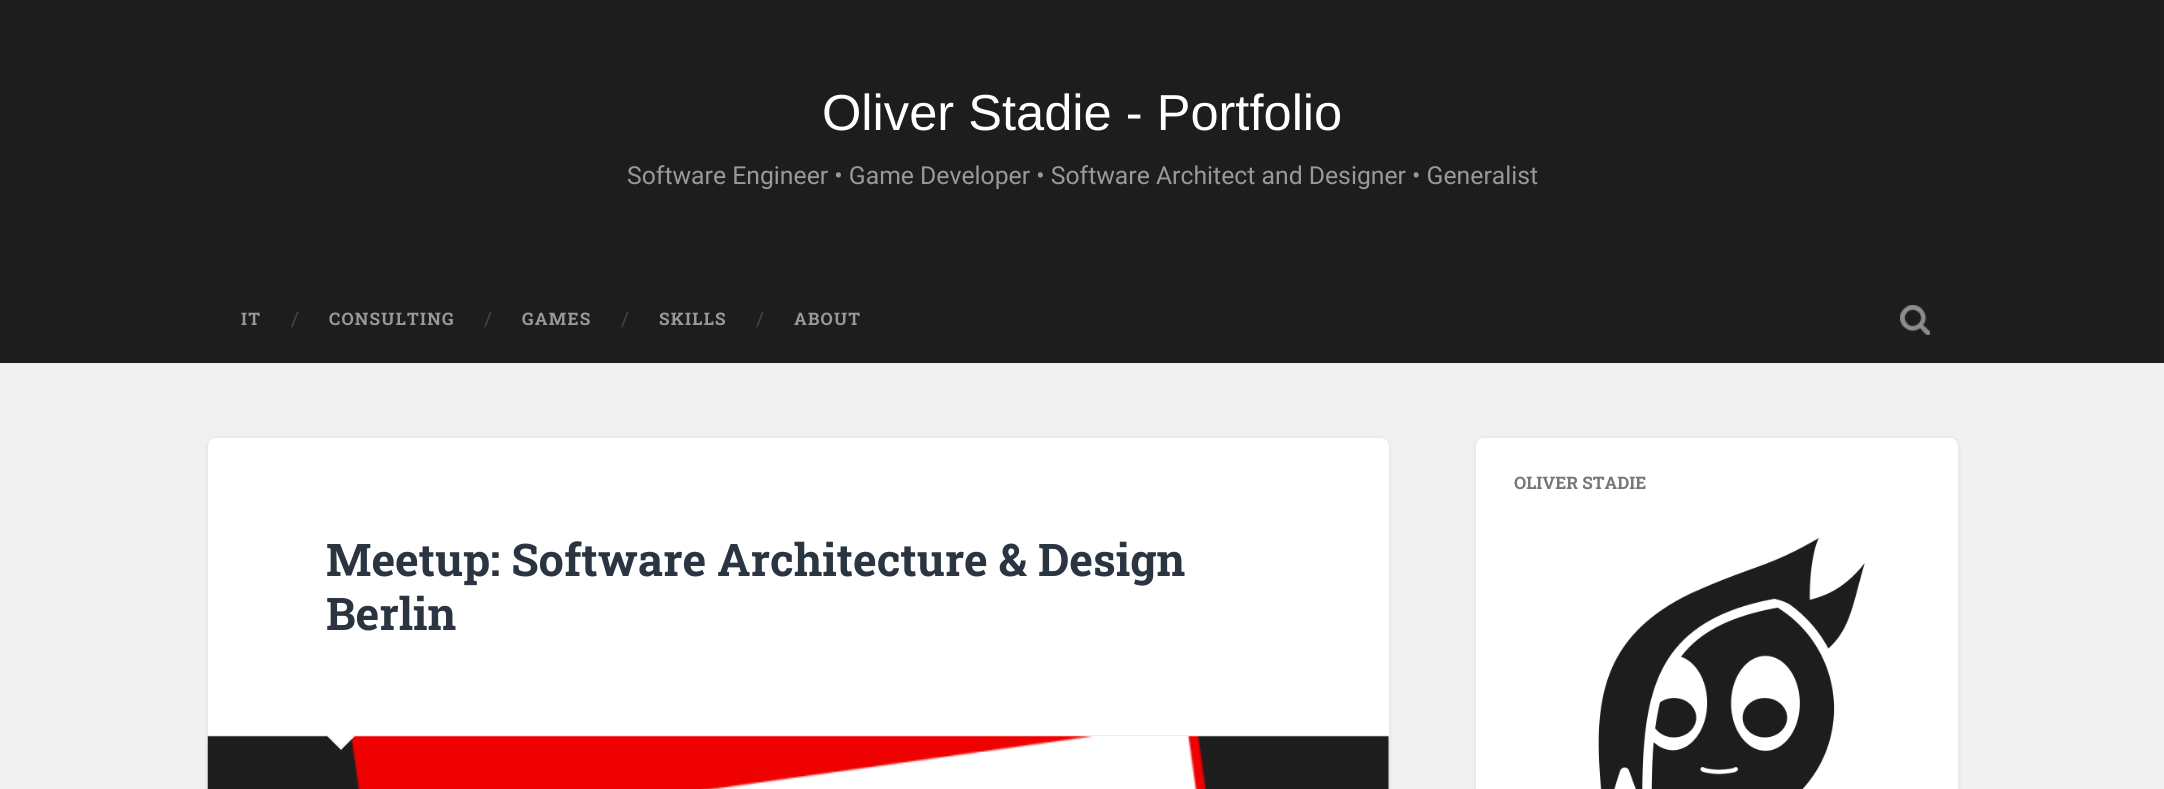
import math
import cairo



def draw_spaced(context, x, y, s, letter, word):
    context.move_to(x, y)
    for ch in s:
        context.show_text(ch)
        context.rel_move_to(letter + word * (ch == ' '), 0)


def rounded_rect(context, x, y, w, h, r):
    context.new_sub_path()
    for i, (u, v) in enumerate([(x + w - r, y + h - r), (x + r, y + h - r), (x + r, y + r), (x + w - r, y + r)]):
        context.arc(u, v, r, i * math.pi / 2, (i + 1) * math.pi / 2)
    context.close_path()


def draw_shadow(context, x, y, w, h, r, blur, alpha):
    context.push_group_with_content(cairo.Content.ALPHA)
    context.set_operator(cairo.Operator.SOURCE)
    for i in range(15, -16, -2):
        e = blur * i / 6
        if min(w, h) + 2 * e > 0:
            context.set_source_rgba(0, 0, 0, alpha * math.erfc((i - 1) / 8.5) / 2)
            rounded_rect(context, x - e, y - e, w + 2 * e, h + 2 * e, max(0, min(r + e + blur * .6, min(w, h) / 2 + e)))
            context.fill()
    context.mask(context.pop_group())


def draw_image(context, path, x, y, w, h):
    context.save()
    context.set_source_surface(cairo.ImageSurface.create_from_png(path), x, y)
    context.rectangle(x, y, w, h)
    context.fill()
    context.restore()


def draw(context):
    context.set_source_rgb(241 / 255, 241 / 255, 241 / 255)
    context.paint()
    context.set_source_rgb(29 / 255, 29 / 255, 29 / 255)
    context.rectangle(0, 0, 2164, 363)
    context.fill()
    draw_image(context, "images/1.png", 1900, 305, 30, 30)
    context.set_source_rgb(0, 0, 0)
    draw_shadow(context, 1476, 439, 482, 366, 8, 2.5, 0.1)
    context.set_source_rgb(1, 1, 1)
    rounded_rect(context, 1476, 438, 482, 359, 8)
    context.fill()
    draw_image(context, "images/2.png", 1598, 537, 267, 252)
    context.set_source_rgb(0, 0, 0)
    draw_shadow(context, 208, 439, 1181, 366, 8, 2.5, 0.1)
    context.set_source_rgb(1, 1, 1)
    rounded_rect(context, 208, 438, 1181, 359, 8)
    context.fill()
    context.set_source_rgb(238 / 255, 238 / 255, 238 / 255)
    context.rectangle(208, 735, 1181, 1)
    context.fill()
    draw_image(context, "images/3.png", 207, 736, 1182, 53)
    context.new_path()
    context.move_to(326, 735)
    context.line_to(356, 735)
    context.line_to(341, 750)
    context.close_path()
    context.fill()
    context.set_source_rgb(1, 1, 1)
    context.new_path()
    context.move_to(327.5, 734)
    context.line_to(355, 734)
    context.line_to(341, 747.5)
    context.close_path()
    context.fill()
    context.select_font_face("Liberation Sans")
    context.set_font_size(50.6)
    context.move_to(822, 130)
    context.show_text("Oliver Stadie - Portfolio")
    context.select_font_face("Roboto")
    context.set_font_size(24.75)
    context.set_source_rgb(153 / 255, 153 / 255, 153 / 255)
    context.move_to(627, 184)
    context.show_text("Software Engineer • Game Developer • Software Architect and Designer • Generalist")
    context.select_font_face("Roboto Slab", cairo.FontSlant.NORMAL, cairo.FontWeight.BOLD)
    context.set_font_size(17.25)
    draw_spaced(context, 241, 325, "IT", 1.25, 0)
    context.select_font_face("Roboto Slab")
    context.set_font_size(20)
    context.set_source_rgb(68 / 255, 68 / 255, 68 / 255)
    context.move_to(291, 326)
    context.show_text("/")
    context.select_font_face("Roboto Slab", cairo.FontSlant.NORMAL, cairo.FontWeight.BOLD)
    context.set_font_size(17.25)
    context.set_source_rgb(153 / 255, 153 / 255, 153 / 255)
    draw_spaced(context, 329, 325, "CONSULTING", 1.25, 0)
    context.select_font_face("Roboto Slab")
    context.set_font_size(20)
    context.set_source_rgb(68 / 255, 68 / 255, 68 / 255)
    context.move_to(484, 326)
    context.show_text("/")
    context.select_font_face("Roboto Slab", cairo.FontSlant.NORMAL, cairo.FontWeight.BOLD)
    context.set_font_size(17.25)
    context.set_source_rgb(153 / 255, 153 / 255, 153 / 255)
    draw_spaced(context, 522, 325, "GAMES", 1.25, 0)
    context.select_font_face("Roboto Slab")
    context.set_font_size(20)
    context.set_source_rgb(68 / 255, 68 / 255, 68 / 255)
    context.move_to(621, 326)
    context.show_text("/")
    context.select_font_face("Roboto Slab", cairo.FontSlant.NORMAL, cairo.FontWeight.BOLD)
    context.set_font_size(17.25)
    context.set_source_rgb(153 / 255, 153 / 255, 153 / 255)
    draw_spaced(context, 659, 325, "SKILLS", 1.25, 0)
    context.select_font_face("Roboto Slab")
    context.set_font_size(20)
    context.set_source_rgb(68 / 255, 68 / 255, 68 / 255)
    context.move_to(756, 326)
    context.show_text("/")
    context.select_font_face("Roboto Slab", cairo.FontSlant.NORMAL, cairo.FontWeight.BOLD)
    context.set_font_size(17.25)
    context.set_source_rgb(153 / 255, 153 / 255, 153 / 255)
    draw_spaced(context, 794, 325, "ABOUT", 1.25, 0)
    context.set_source_rgb(118 / 255, 118 / 255, 118 / 255)
    context.move_to(1514, 489)
    context.show_text("OLIVER STADIE")
    context.set_font_size(45)
    context.set_source_rgb(43 / 255, 53 / 255, 66 / 255)
    context.move_to(326, 576)
    context.show_text("Meetup: Software Architecture & Design")
    context.move_to(326, 630)
    context.show_text("Berlin")


surface = cairo.ImageSurface(cairo.Format.RGB24, 2164, 789)
context = cairo.Context(surface)
options = cairo.FontOptions()
options.set_hint_metrics(cairo.HintMetrics.OFF)
options.set_hint_style(cairo.HintStyle.NONE)
context.set_font_options(options)
context.set_miter_limit(4)
draw(context)
surface.write_to_png("out.png")
